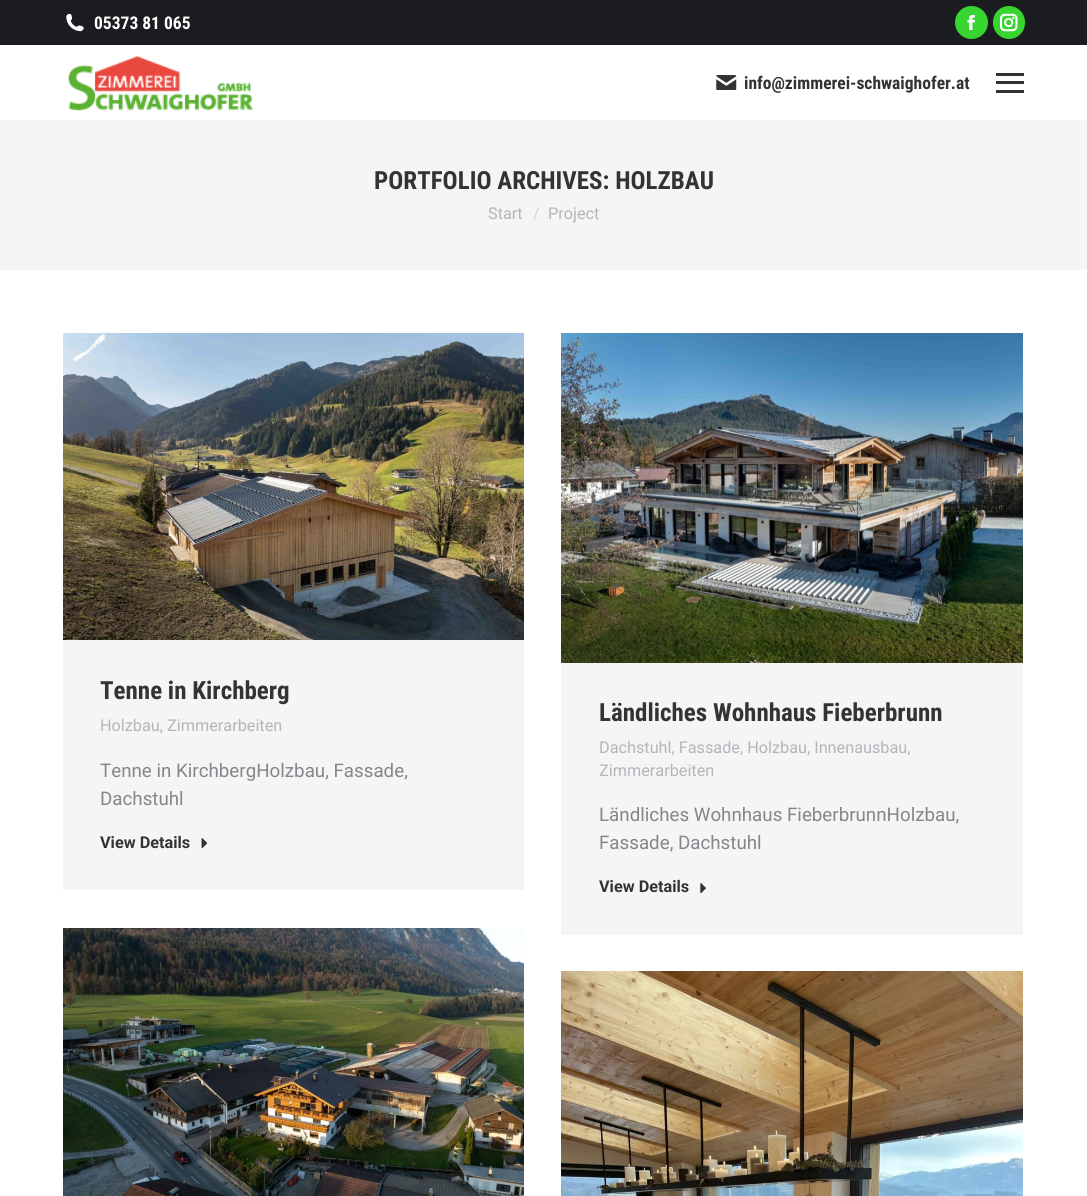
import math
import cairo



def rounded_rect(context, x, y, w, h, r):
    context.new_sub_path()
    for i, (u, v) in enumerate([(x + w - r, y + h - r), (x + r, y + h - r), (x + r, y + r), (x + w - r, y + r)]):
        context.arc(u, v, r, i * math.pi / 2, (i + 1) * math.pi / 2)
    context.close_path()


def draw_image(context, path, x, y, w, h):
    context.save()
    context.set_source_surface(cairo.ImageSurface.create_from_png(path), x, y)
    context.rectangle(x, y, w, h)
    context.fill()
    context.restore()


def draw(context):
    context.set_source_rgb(1, 1, 1)
    context.paint()
    context.set_source_rgb(26 / 255, 28 / 255, 32 / 255)
    context.rectangle(0, 0, 1087, 45)
    context.fill()
    draw_image(context, "images/1.png", 66, 13, 18, 19)
    context.set_source_rgb(56 / 255, 212 / 255, 48 / 255)
    context.arc(971.5, 22.5, 16.5, 0, 2 * math.pi)
    context.fill()
    draw_image(context, "images/2.png", 967, 15, 8, 15)
    rounded_rect(context, 993, 6, 32, 33, 16)
    context.fill()
    draw_image(context, "images/3.png", 1000, 13, 18, 19)
    draw_image(context, "images/4.png", 68, 56, 185, 55)
    draw_image(context, "images/5.png", 716, 75, 21, 15)
    context.set_source_rgb(51 / 255, 51 / 255, 51 / 255)
    context.rectangle(996, 73, 28, 3)
    context.fill()
    context.rectangle(996, 81, 28, 3)
    context.fill()
    context.rectangle(996, 90, 28, 3)
    context.fill()
    context.set_source_rgb(245 / 255, 245 / 255, 245 / 255)
    context.rectangle(0, 120, 1087, 150)
    context.fill()
    context.rectangle(63, 640, 461, 250)
    context.fill()
    draw_image(context, "images/6.png", 63, 333, 461, 307)
    draw_image(context, "images/7.png", 201, 838, 7, 11)
    context.rectangle(561, 662, 462, 273)
    context.fill()
    draw_image(context, "images/8.png", 561, 333, 462, 330)
    draw_image(context, "images/9.png", 700, 883, 6, 11)
    draw_image(context, "images/10.png", 63, 928, 461, 268)
    draw_image(context, "images/11.png", 561, 971, 462, 225)
    context.select_font_face("Roboto Condensed", cairo.FontSlant.NORMAL, cairo.FontWeight.BOLD)
    context.set_font_size(17.5)
    context.set_source_rgb(1, 1, 1)
    context.move_to(94, 29)
    context.show_text("05373 81 065")
    context.set_source_rgb(51 / 255, 51 / 255, 51 / 255)
    context.move_to(744, 89)
    context.show_text("info@zimmerei-schwaighofer.at")
    context.set_font_size(25)
    context.move_to(374, 189)
    context.show_text("PORTFOLIO ARCHIVES: HOLZBAU")
    context.select_font_face("Roboto")
    context.set_font_size(16.25)
    context.set_source_rgb(180 / 255, 181 / 255, 187 / 255)
    context.move_to(488, 219)
    context.show_text("Start")
    context.set_source_rgb(213 / 255, 213 / 255, 216 / 255)
    context.move_to(533, 219)
    context.show_text("/")
    context.set_source_rgb(180 / 255, 181 / 255, 187 / 255)
    context.move_to(548, 219)
    context.show_text("Project")
    context.select_font_face("Roboto Condensed", cairo.FontSlant.NORMAL, cairo.FontWeight.BOLD)
    context.set_font_size(25)
    context.set_source_rgb(51 / 255, 51 / 255, 51 / 255)
    context.move_to(100, 699)
    context.show_text("Tenne in Kirchberg")
    context.select_font_face("Roboto")
    context.set_font_size(16.25)
    context.set_source_rgb(180 / 255, 181 / 255, 187 / 255)
    context.move_to(100, 731)
    context.show_text("Holzbau, Zimmerarbeiten")
    context.set_font_size(18.75)
    context.set_source_rgb(133 / 255, 134 / 255, 140 / 255)
    context.move_to(100, 777)
    context.show_text("Tenne in KirchbergHolzbau, Fassade,")
    context.move_to(100, 805)
    context.show_text("Dachstuhl")
    context.select_font_face("Roboto", cairo.FontSlant.NORMAL, cairo.FontWeight.BOLD)
    context.set_font_size(16.25)
    context.set_source_rgb(51 / 255, 51 / 255, 51 / 255)
    context.move_to(100, 848)
    context.show_text("View Details")
    context.select_font_face("Roboto Condensed", cairo.FontSlant.NORMAL, cairo.FontWeight.BOLD)
    context.set_font_size(25)
    context.move_to(599, 721)
    context.show_text("Ländliches Wohnhaus Fieberbrunn")
    context.select_font_face("Roboto")
    context.set_font_size(16.25)
    context.set_source_rgb(180 / 255, 181 / 255, 187 / 255)
    context.move_to(599, 753)
    context.show_text("Dachstuhl, Fassade, Holzbau, Innenausbau,")
    context.move_to(599, 776)
    context.show_text("Zimmerarbeiten")
    context.set_font_size(18.75)
    context.set_source_rgb(133 / 255, 134 / 255, 140 / 255)
    context.move_to(599, 821)
    context.show_text("Ländliches Wohnhaus FieberbrunnHolzbau,")
    context.move_to(599, 849)
    context.show_text("Fassade, Dachstuhl")
    context.select_font_face("Roboto", cairo.FontSlant.NORMAL, cairo.FontWeight.BOLD)
    context.set_font_size(16.25)
    context.set_source_rgb(51 / 255, 51 / 255, 51 / 255)
    context.move_to(599, 892)
    context.show_text("View Details")


surface = cairo.ImageSurface(cairo.Format.RGB24, 1087, 1196)
context = cairo.Context(surface)
options = cairo.FontOptions()
options.set_hint_metrics(cairo.HintMetrics.OFF)
options.set_hint_style(cairo.HintStyle.NONE)
context.set_font_options(options)
context.set_miter_limit(4)
draw(context)
surface.write_to_png("out.png")
